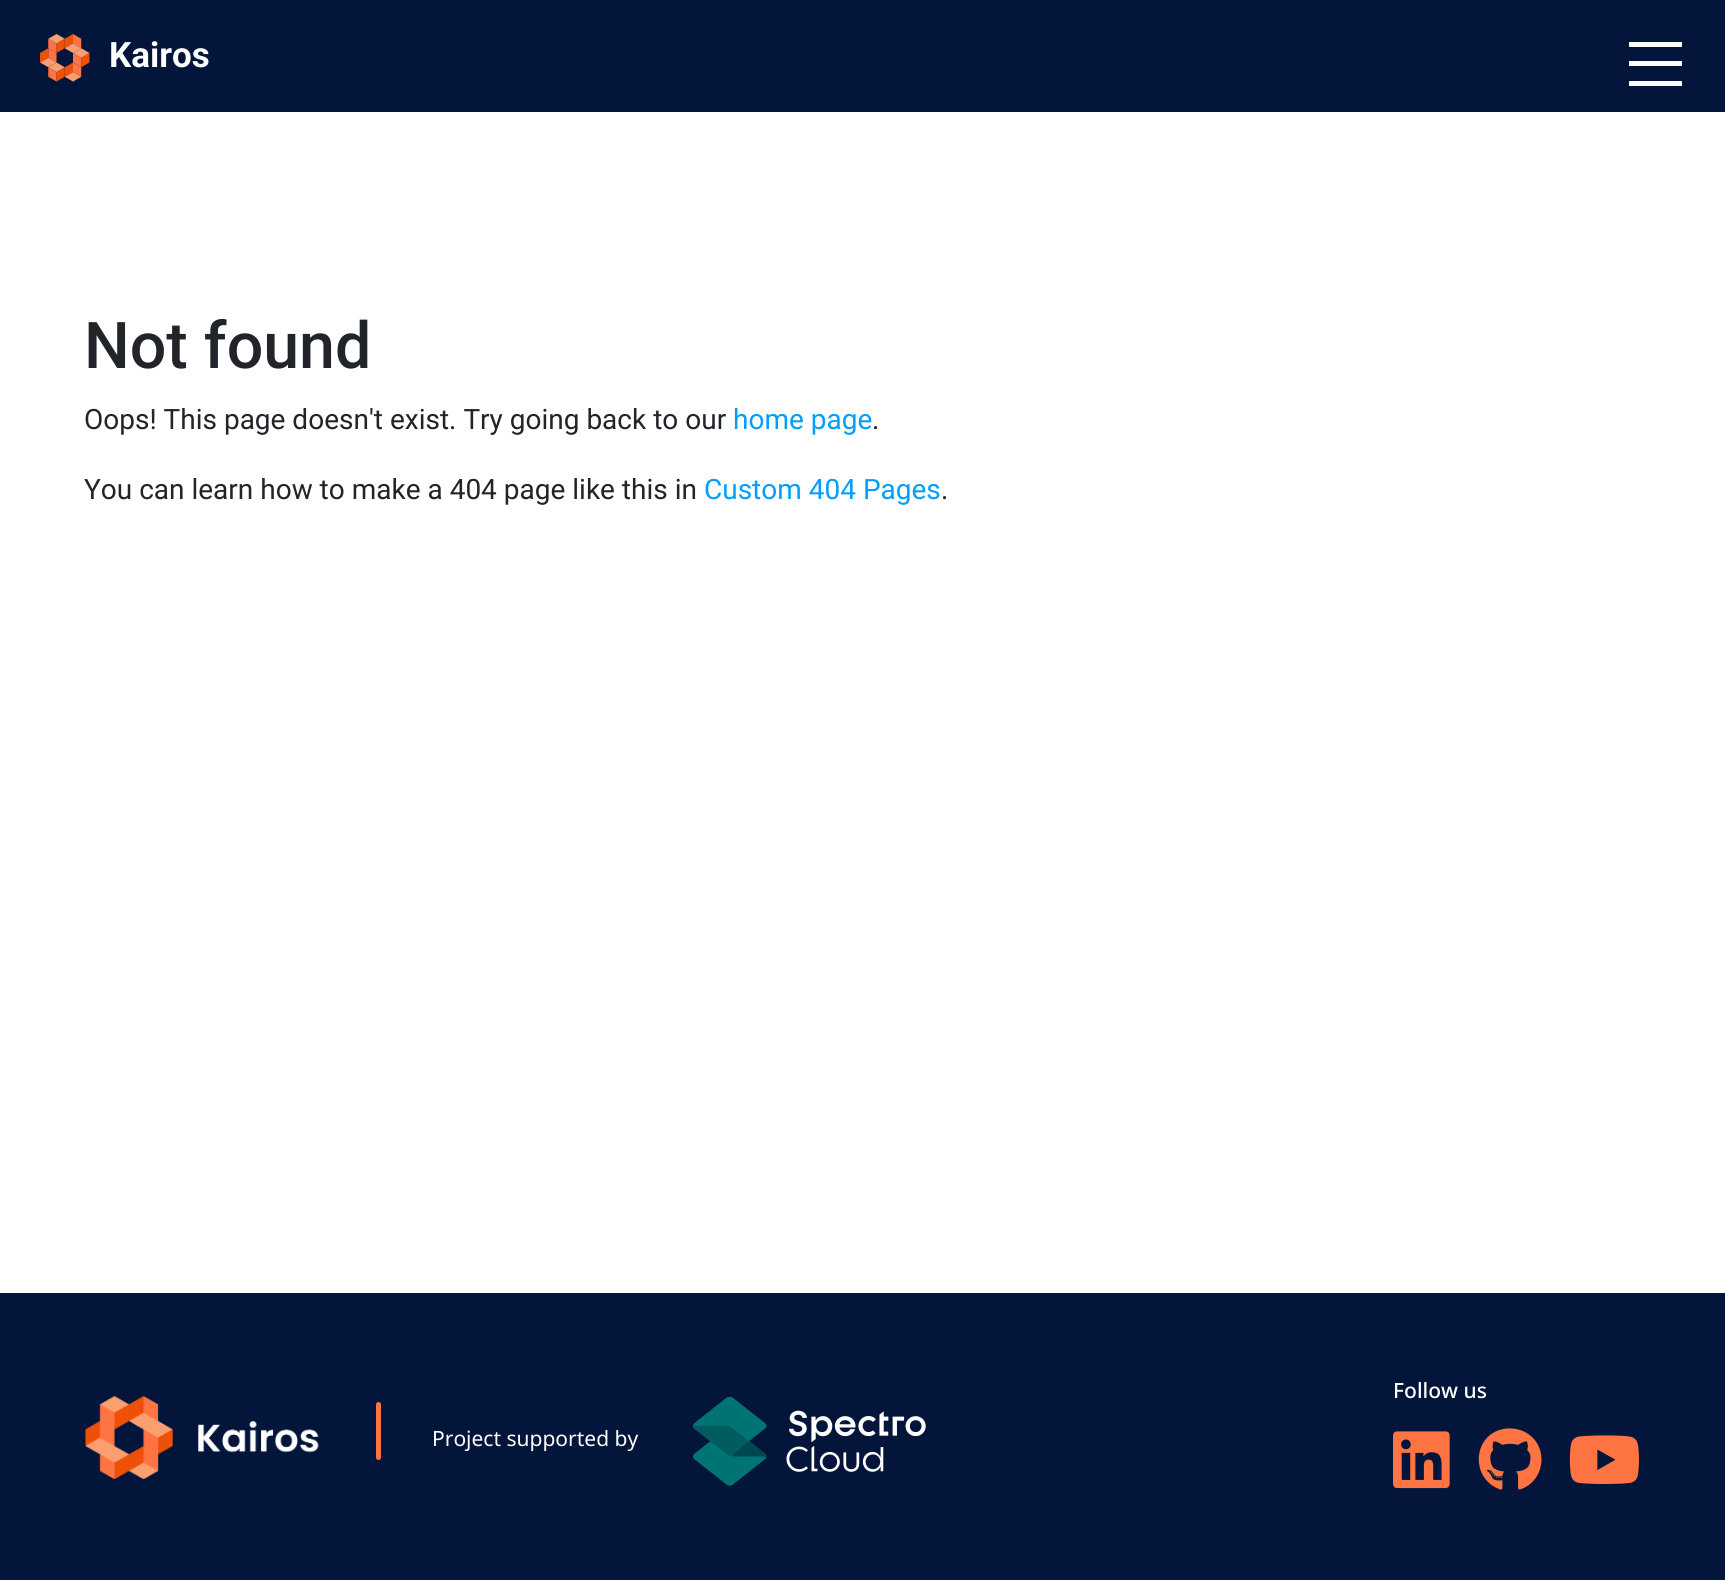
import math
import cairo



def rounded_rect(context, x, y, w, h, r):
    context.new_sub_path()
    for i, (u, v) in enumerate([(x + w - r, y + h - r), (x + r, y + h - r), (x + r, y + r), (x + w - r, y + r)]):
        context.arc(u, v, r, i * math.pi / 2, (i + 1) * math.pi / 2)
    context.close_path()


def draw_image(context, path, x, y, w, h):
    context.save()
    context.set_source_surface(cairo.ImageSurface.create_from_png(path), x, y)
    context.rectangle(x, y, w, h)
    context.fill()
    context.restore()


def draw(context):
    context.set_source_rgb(1, 1, 1)
    context.paint()
    context.set_source_rgb(3 / 255, 21 / 255, 58 / 255)
    context.rectangle(0, 0, 1725, 112)
    context.fill()
    draw_image(context, "images/1.png", 40, 34, 50, 48)
    context.set_source_rgb(1, 1, 1)
    context.rectangle(1629, 42, 53, 5)
    context.fill()
    context.rectangle(1629, 61, 53, 5)
    context.fill()
    context.rectangle(1629, 81, 53, 5)
    context.fill()
    context.set_source_rgb(3 / 255, 21 / 255, 58 / 255)
    context.rectangle(0, 1293, 1725, 287)
    context.fill()
    draw_image(context, "images/2.png", 1393, 1431, 57, 58)
    draw_image(context, "images/3.png", 1478, 1428, 64, 62)
    draw_image(context, "images/4.png", 1569, 1435, 70, 49)
    draw_image(context, "images/5.png", 85, 1395, 234, 84)
    context.set_source_rgb(1, 116 / 255, 66 / 255)
    rounded_rect(context, 376, 1402, 5, 58, 2.5)
    context.fill()
    draw_image(context, "images/6.png", 693, 1397, 233, 89)
    context.select_font_face("Roboto", cairo.FontSlant.NORMAL, cairo.FontWeight.BOLD)
    context.set_font_size(35)
    context.set_source_rgb(1, 1, 1)
    context.move_to(109, 67)
    context.show_text("Kairos")
    context.select_font_face("Roboto Medium")
    context.set_font_size(64.5)
    context.set_source_rgb(33 / 255, 37 / 255, 41 / 255)
    context.move_to(84, 368)
    context.show_text("Not found")
    context.select_font_face("Roboto")
    context.set_font_size(28)
    context.move_to(84, 429)
    context.show_text("Oops! This page doesn't exist. Try going back to our")
    context.set_source_rgb(0, 159 / 255, 253 / 255)
    context.move_to(733, 429)
    context.show_text("home page")
    context.set_source_rgb(33 / 255, 37 / 255, 41 / 255)
    context.move_to(872, 429)
    context.show_text(".")
    context.move_to(84, 499)
    context.show_text("You can learn how to make a 404 page like this in")
    context.set_source_rgb(0, 159 / 255, 253 / 255)
    context.move_to(704, 499)
    context.show_text("Custom 404 Pages")
    context.set_source_rgb(33 / 255, 37 / 255, 41 / 255)
    context.move_to(941, 499)
    context.show_text(".")
    context.select_font_face("Noto Sans Medium")
    context.set_font_size(21)
    context.set_source_rgb(1, 1, 1)
    context.move_to(1393, 1398)
    context.show_text("Follow us")
    context.select_font_face("Noto Sans")
    context.move_to(432, 1446)
    context.show_text("Project supported by")


surface = cairo.ImageSurface(cairo.Format.RGB24, 1725, 1580)
context = cairo.Context(surface)
options = cairo.FontOptions()
options.set_hint_metrics(cairo.HintMetrics.OFF)
options.set_hint_style(cairo.HintStyle.NONE)
context.set_font_options(options)
context.set_miter_limit(4)
draw(context)
surface.write_to_png("out.png")
